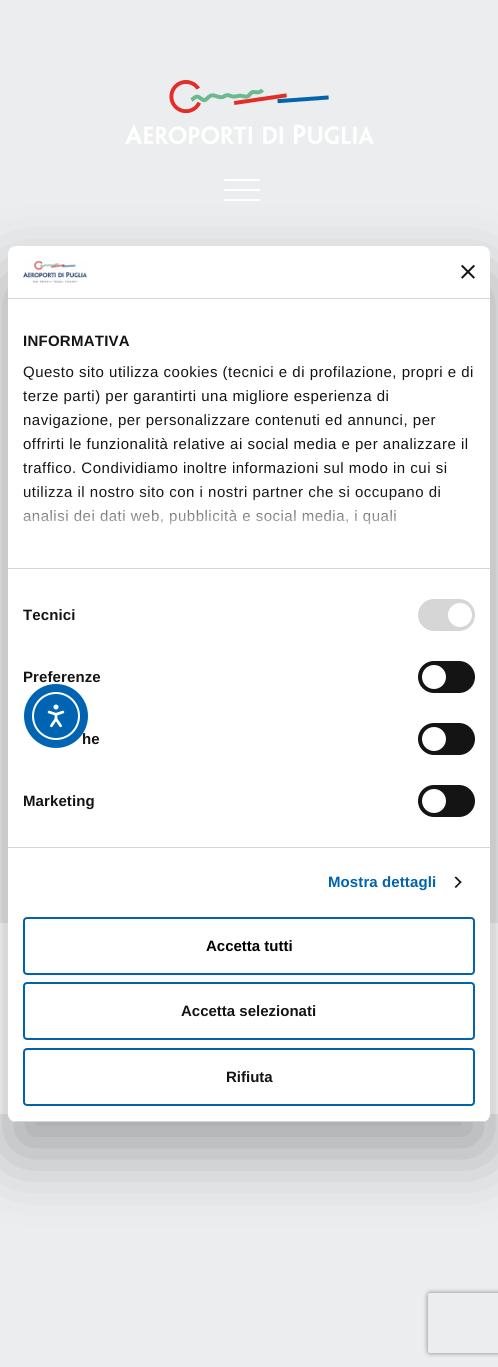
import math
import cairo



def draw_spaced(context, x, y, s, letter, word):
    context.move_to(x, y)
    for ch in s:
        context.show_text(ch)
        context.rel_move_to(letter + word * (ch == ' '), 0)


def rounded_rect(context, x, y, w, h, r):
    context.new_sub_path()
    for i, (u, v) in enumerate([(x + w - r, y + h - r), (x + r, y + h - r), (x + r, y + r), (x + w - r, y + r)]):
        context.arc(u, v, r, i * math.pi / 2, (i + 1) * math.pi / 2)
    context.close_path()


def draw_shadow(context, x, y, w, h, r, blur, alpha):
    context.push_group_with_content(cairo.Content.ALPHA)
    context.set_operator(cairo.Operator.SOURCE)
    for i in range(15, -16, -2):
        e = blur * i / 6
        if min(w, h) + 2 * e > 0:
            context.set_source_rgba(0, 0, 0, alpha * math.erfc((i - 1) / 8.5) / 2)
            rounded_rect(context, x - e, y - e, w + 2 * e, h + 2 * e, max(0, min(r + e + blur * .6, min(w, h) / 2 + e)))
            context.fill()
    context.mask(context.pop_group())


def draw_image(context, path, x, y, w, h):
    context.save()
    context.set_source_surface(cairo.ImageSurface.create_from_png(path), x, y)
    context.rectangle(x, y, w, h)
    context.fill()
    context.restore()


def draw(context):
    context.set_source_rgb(235 / 255, 237 / 255, 238 / 255)
    context.paint()
    draw_image(context, "images/1.png", 125, 80, 249, 64)
    context.set_source_rgb(1, 1, 1)
    rounded_rect(context, 224, 179, 36, 2, 1)
    context.fill()
    rounded_rect(context, 224, 189, 36, 2, 1)
    context.fill()
    rounded_rect(context, 224, 199, 36, 2, 1)
    context.fill()
    context.rectangle(0, 923, 498, 191)
    context.fill()
    context.set_source_rgb(0, 0, 0)
    draw_shadow(context, 8, 278, 482, 876, 8, 34, 0.3)
    context.set_source_rgb(1, 1, 1)
    rounded_rect(context, 8, 246, 482, 876, 8)
    context.fill()
    context.set_source_rgb(214 / 255, 214 / 255, 214 / 255)
    context.rectangle(8, 298, 482, 1)
    context.fill()
    draw_image(context, "images/2.png", 23, 260, 65, 23)
    draw_image(context, "images/3.png", 461, 265, 14, 14)
    context.rectangle(8, 568, 482, 1)
    context.fill()
    context.rectangle(8, 847, 482, 1)
    context.fill()
    rounded_rect(context, 418, 599, 57, 32, 16)
    context.fill()
    context.set_source_rgb(1, 1, 1)
    context.arc(460, 615, 12, 0, 2 * math.pi)
    context.fill()
    context.set_source_rgb(20 / 255, 20 / 255, 20 / 255)
    rounded_rect(context, 418, 661, 57, 32, 16)
    context.fill()
    context.set_source_rgb(1, 1, 1)
    context.arc(434, 677, 12, 0, 2 * math.pi)
    context.fill()
    context.set_source_rgb(20 / 255, 20 / 255, 20 / 255)
    rounded_rect(context, 418, 723, 57, 32, 16)
    context.fill()
    context.set_source_rgb(1, 1, 1)
    context.arc(434, 739, 12, 0, 2 * math.pi)
    context.fill()
    context.set_source_rgb(20 / 255, 20 / 255, 20 / 255)
    rounded_rect(context, 418, 785, 57, 32, 16)
    context.fill()
    context.set_source_rgb(1, 1, 1)
    context.arc(434, 801, 12, 0, 2 * math.pi)
    context.fill()
    context.set_source_rgb(20 / 255, 20 / 255, 20 / 255)
    context.new_path()
    context.move_to(456, 876.5)
    context.line_to(461.5, 882)
    context.line_to(460.5, 883.5)
    context.line_to(454.5, 877.5)
    context.close_path()
    context.fill()
    context.new_path()
    context.move_to(460.5, 881)
    context.line_to(461.5, 882)
    context.line_to(456, 888)
    context.line_to(454.5, 887)
    context.close_path()
    context.fill()
    context.save()
    rounded_rect(context, 8, 246, 482, 876, 8)
    context.clip()
    context.set_source_rgb(214 / 255, 214 / 255, 214 / 255)
    context.rectangle(8, 1121, 482, 1)
    context.fill()
    context.restore()
    rounded_rect(context, 24, 918, 450, 56, 3)
    context.set_source_rgb(0, 99 / 255, 172 / 255)
    context.stroke()
    rounded_rect(context, 24, 983, 450, 56, 3)
    context.stroke()
    rounded_rect(context, 24, 1049, 450, 56, 3)
    context.stroke()
    context.save()
    context.set_fill_rule(cairo.FillRule.EVEN_ODD)
    context.new_path()
    context.move_to(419, 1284)
    context.line_to(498, 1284)
    context.line_to(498, 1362)
    context.line_to(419, 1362)
    context.close_path()
    context.move_to(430, 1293)
    context.line_to(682, 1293)
    context.curve_to(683, 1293, 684, 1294, 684, 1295)
    context.line_to(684, 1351)
    context.curve_to(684, 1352, 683, 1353, 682, 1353)
    context.line_to(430, 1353)
    context.curve_to(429, 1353, 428, 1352, 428, 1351)
    context.line_to(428, 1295)
    context.curve_to(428, 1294, 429, 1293, 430, 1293)
    context.close_path()
    context.clip()
    context.set_source_rgb(128 / 255, 128 / 255, 128 / 255)
    draw_shadow(context, 428, 1293, 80, 60, 2, 2.5, 1)
    context.restore()
    context.select_font_face("Liberation Sans", cairo.FontSlant.NORMAL, cairo.FontWeight.BOLD)
    context.set_font_size(15)
    context.set_source_rgb(20 / 255, 20 / 255, 20 / 255)
    draw_spaced(context, 23, 346, "INFORMATIVA", 0.25, 0)
    context.select_font_face("Liberation Sans")
    draw_spaced(context, 23, 377, "Questo sito utilizza cookies (tecnici e di profilazione, propri e di", 0.5, 0)
    draw_spaced(context, 23, 401, "terze parti) per garantirti una migliore esperienza di", 0.5, 0)
    draw_spaced(context, 23, 425, "navigazione, per personalizzare contenuti ed annunci, per", 0.5, 0)
    draw_spaced(context, 23, 449, "offrirti le funzionalità relative ai social media e per analizzare il", 0.5, 0)
    draw_spaced(context, 23, 473, "traffico. Condividiamo inoltre informazioni sul modo in cui si", 0.5, 0)
    draw_spaced(context, 23, 497, "utilizza il nostro sito con i nostri partner che si occupano di", 0.5, 0)
    draw_spaced(context, 23, 521, "analisi dei dati web, pubblicità e social media, i quali", 0.5, 0)
    gradient = cairo.LinearGradient(243, 568, 243, 493)
    gradient.add_color_stop_rgba(0, 1, 1, 1, 1)
    gradient.add_color_stop_rgba(0.5, 1, 1, 1, 0.8)
    gradient.add_color_stop_rgba(1, 1, 1, 1, 0)
    context.set_source(gradient)
    context.rectangle(23, 494, 417, 31)
    context.fill()
    context.select_font_face("Liberation Sans", cairo.FontSlant.NORMAL, cairo.FontWeight.BOLD)
    context.set_source_rgb(20 / 255, 20 / 255, 20 / 255)
    draw_spaced(context, 23, 620, "Tecnici", 0.1, 0)
    draw_spaced(context, 23, 682, "Preferenze", 0.1, 0)
    draw_spaced(context, 82, 744, "he", 0.1, 0)
    draw_spaced(context, 23, 806, "Marketing", 0.1, 0)
    context.set_source_rgb(0, 99 / 255, 172 / 255)
    draw_spaced(context, 328, 887, "Mostra dettagli", 0.1, 0)
    context.set_source_rgb(0, 0, 0)
    context.move_to(206, 951)
    context.show_text("Accetta tutti")
    context.set_source_rgb(20 / 255, 20 / 255, 20 / 255)
    context.move_to(181, 1016)
    context.show_text("Accetta selezionati")
    context.move_to(226, 1082)
    context.show_text("Rifiuta")
    context.set_source_rgb(0, 100 / 255, 179 / 255)
    context.new_path()
    context.arc(56, 716, 32, 0, 2 * math.pi)
    context.fill()
    context.arc(56, 716, 23, 0, 2 * math.pi)
    context.set_source_rgb(1, 1, 1)
    context.stroke()
    draw_image(context, "images/4.png", 47, 704, 18, 24)


surface = cairo.ImageSurface(cairo.Format.RGB24, 498, 1367)
context = cairo.Context(surface)
options = cairo.FontOptions()
options.set_hint_metrics(cairo.HintMetrics.OFF)
options.set_hint_style(cairo.HintStyle.NONE)
context.set_font_options(options)
context.set_miter_limit(4)
draw(context)
surface.write_to_png("out.png")
